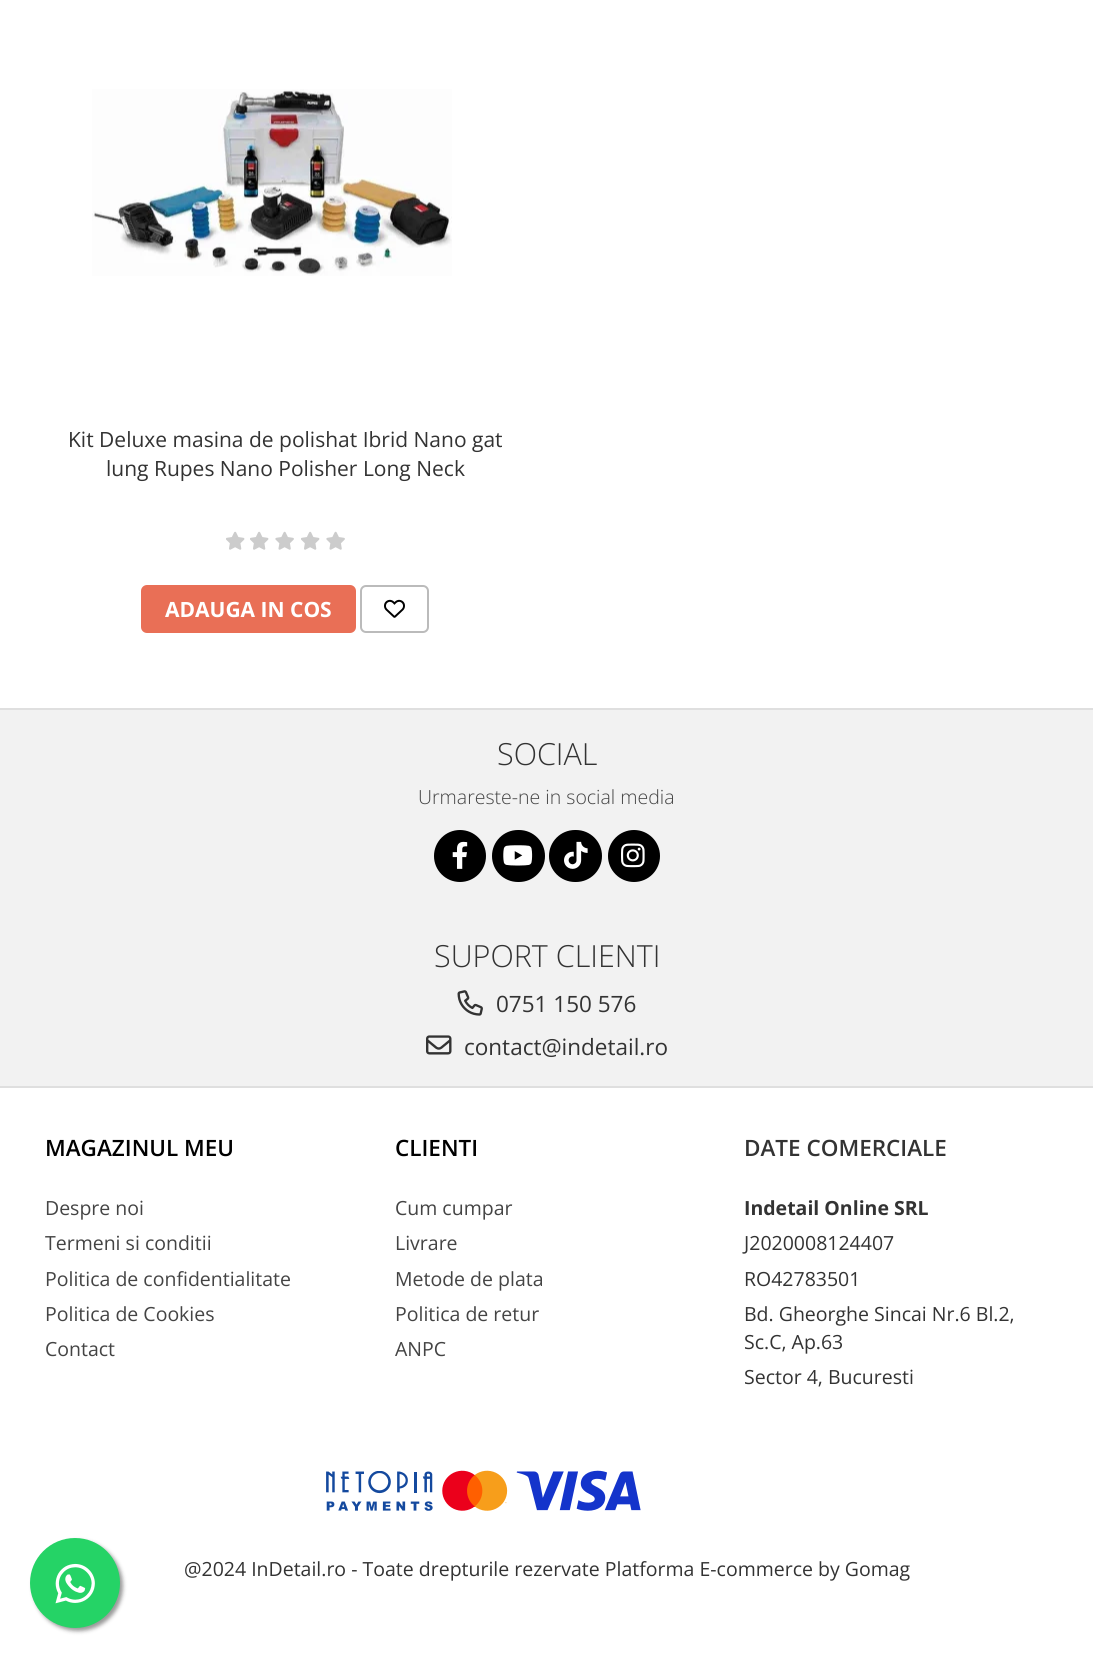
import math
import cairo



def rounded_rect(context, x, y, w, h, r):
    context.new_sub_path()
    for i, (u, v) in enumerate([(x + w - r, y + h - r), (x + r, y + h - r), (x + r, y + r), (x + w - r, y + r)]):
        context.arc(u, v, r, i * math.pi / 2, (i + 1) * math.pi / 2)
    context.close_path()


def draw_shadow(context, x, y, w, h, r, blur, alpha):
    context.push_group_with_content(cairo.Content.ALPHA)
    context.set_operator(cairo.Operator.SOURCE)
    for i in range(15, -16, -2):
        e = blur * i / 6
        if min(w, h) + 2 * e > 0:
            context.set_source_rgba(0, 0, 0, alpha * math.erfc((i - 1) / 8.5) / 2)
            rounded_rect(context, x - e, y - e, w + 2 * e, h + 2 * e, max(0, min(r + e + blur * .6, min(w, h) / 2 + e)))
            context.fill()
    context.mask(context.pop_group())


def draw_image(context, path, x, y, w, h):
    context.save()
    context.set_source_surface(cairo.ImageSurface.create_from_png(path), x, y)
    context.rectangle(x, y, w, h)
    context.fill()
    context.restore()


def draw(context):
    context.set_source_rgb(1, 1, 1)
    context.paint()
    draw_image(context, "images/1.png", 92, 89, 360, 187)
    draw_image(context, "images/2.png", 226, 531, 19, 19)
    draw_image(context, "images/2.png", 250, 531, 19, 19)
    draw_image(context, "images/3.png", 275, 531, 19, 19)
    draw_image(context, "images/2.png", 301, 531, 19, 19)
    draw_image(context, "images/3.png", 326, 531, 19, 19)
    context.set_source_rgb(233 / 255, 111 / 255, 86 / 255)
    rounded_rect(context, 141, 585, 215, 48, 6)
    context.fill()
    rounded_rect(context, 361, 586, 67, 46, 5)
    context.set_source_rgb(187 / 255, 187 / 255, 187 / 255)
    context.stroke()
    draw_image(context, "images/4.png", 384, 599, 21, 19)
    context.set_source_rgb(242 / 255, 242 / 255, 242 / 255)
    context.rectangle(0, 710, 1093, 376)
    context.fill()
    context.set_source_rgb(223 / 255, 223 / 255, 223 / 255)
    context.rectangle(0, 708, 1093, 2)
    context.fill()
    context.rectangle(0, 1086, 1093, 2)
    context.fill()
    context.set_source_rgb(0, 0, 0)
    context.arc(460, 856, 26, 0, 2 * math.pi)
    context.fill()
    draw_image(context, "images/5.png", 452, 841, 16, 28)
    rounded_rect(context, 492, 830, 53, 52, 26)
    context.fill()
    draw_image(context, "images/6.png", 503, 845, 30, 21)
    rounded_rect(context, 549, 830, 53, 52, 26)
    context.fill()
    draw_image(context, "images/7.png", 564, 841, 24, 28)
    context.arc(634, 856, 26, 0, 2 * math.pi)
    context.fill()
    draw_image(context, "images/8.png", 621, 843, 24, 25)
    draw_image(context, "images/9.png", 457, 990, 26, 26)
    draw_image(context, "images/10.png", 426, 1035, 26, 20)
    draw_image(context, "images/11.png", 326, 1470, 315, 41)
    context.set_source_rgb(153 / 255, 153 / 255, 153 / 255)
    draw_shadow(context, 33, 1541, 90, 90, 45, 2, 1)
    context.set_source_rgb(37 / 255, 211 / 255, 102 / 255)
    context.arc(75, 1583, 45, 0, 2 * math.pi)
    context.fill()
    draw_image(context, "images/12.png", 55, 1563, 40, 41)
    context.select_font_face("Open Sans")
    context.set_font_size(21)
    context.set_source_rgb(51 / 255, 51 / 255, 51 / 255)
    context.move_to(68, 447)
    context.show_text("Kit Deluxe masina de polishat Ibrid Nano gat")
    context.move_to(106, 476)
    context.show_text("lung Rupes Nano Polisher Long Neck")
    context.select_font_face("Open Sans", cairo.FontSlant.NORMAL, cairo.FontWeight.BOLD)
    context.set_source_rgb(1, 1, 1)
    context.move_to(165, 617)
    context.show_text("ADAUGA IN COS")
    context.select_font_face("Open Sans Light")
    context.set_font_size(30.5)
    context.set_source_rgb(51 / 255, 51 / 255, 51 / 255)
    context.move_to(497, 765)
    context.show_text("SOCIAL")
    context.set_font_size(19.5)
    context.set_source_rgb(68 / 255, 68 / 255, 68 / 255)
    context.move_to(418, 804)
    context.show_text("Urmareste-ne in social media")
    context.set_font_size(30.5)
    context.set_source_rgb(51 / 255, 51 / 255, 51 / 255)
    context.move_to(434, 967)
    context.show_text("SUPORT CLIENTI")
    context.select_font_face("Open Sans")
    context.set_font_size(22.5)
    context.move_to(496, 1012)
    context.show_text("0751 150 576")
    context.move_to(464, 1055)
    context.show_text("contact@indetail.ro")
    context.select_font_face("Open Sans SemiBold")
    context.set_source_rgb(0, 0, 0)
    context.move_to(45, 1156)
    context.show_text("MAGAZINUL MEU")
    context.select_font_face("Open Sans")
    context.set_font_size(19.5)
    context.set_source_rgb(68 / 255, 68 / 255, 68 / 255)
    context.move_to(45, 1215)
    context.show_text("Despre noi")
    context.move_to(45, 1250)
    context.show_text("Termeni si conditii")
    context.move_to(45, 1286)
    context.show_text("Politica de confidentialitate")
    context.move_to(45, 1321)
    context.show_text("Politica de Cookies")
    context.move_to(45, 1356)
    context.show_text("Contact")
    context.select_font_face("Open Sans SemiBold")
    context.set_font_size(22.5)
    context.set_source_rgb(0, 0, 0)
    context.move_to(395, 1156)
    context.show_text("CLIENTI")
    context.select_font_face("Open Sans")
    context.set_font_size(19.5)
    context.set_source_rgb(68 / 255, 68 / 255, 68 / 255)
    context.move_to(395, 1215)
    context.show_text("Cum cumpar")
    context.move_to(395, 1250)
    context.show_text("Livrare")
    context.move_to(395, 1286)
    context.show_text("Metode de plata")
    context.move_to(395, 1321)
    context.show_text("Politica de retur")
    context.move_to(395, 1356)
    context.show_text("ANPC")
    context.select_font_face("Open Sans SemiBold")
    context.set_font_size(22.5)
    context.set_source_rgb(51 / 255, 51 / 255, 51 / 255)
    context.move_to(744, 1156)
    context.show_text("DATE COMERCIALE")
    context.select_font_face("Open Sans", cairo.FontSlant.NORMAL, cairo.FontWeight.BOLD)
    context.set_font_size(19.5)
    context.move_to(744, 1215)
    context.show_text("Indetail Online SRL")
    context.select_font_face("Open Sans")
    context.move_to(744, 1250)
    context.show_text("J2020008124407")
    context.move_to(744, 1286)
    context.show_text("RO42783501")
    context.move_to(744, 1321)
    context.show_text("Bd. Gheorghe Sincai Nr.6 Bl.2,")
    context.move_to(744, 1349)
    context.show_text("Sc.C, Ap.63")
    context.move_to(744, 1384)
    context.show_text("Sector 4, Bucuresti")
    context.move_to(184, 1576)
    context.show_text("@2024 InDetail.ro - Toate drepturile rezervate Platforma E-commerce by Gomag")


surface = cairo.ImageSurface(cairo.Format.RGB24, 1093, 1657)
context = cairo.Context(surface)
options = cairo.FontOptions()
options.set_hint_metrics(cairo.HintMetrics.OFF)
options.set_hint_style(cairo.HintStyle.NONE)
context.set_font_options(options)
context.set_miter_limit(4)
draw(context)
surface.write_to_png("out.png")
